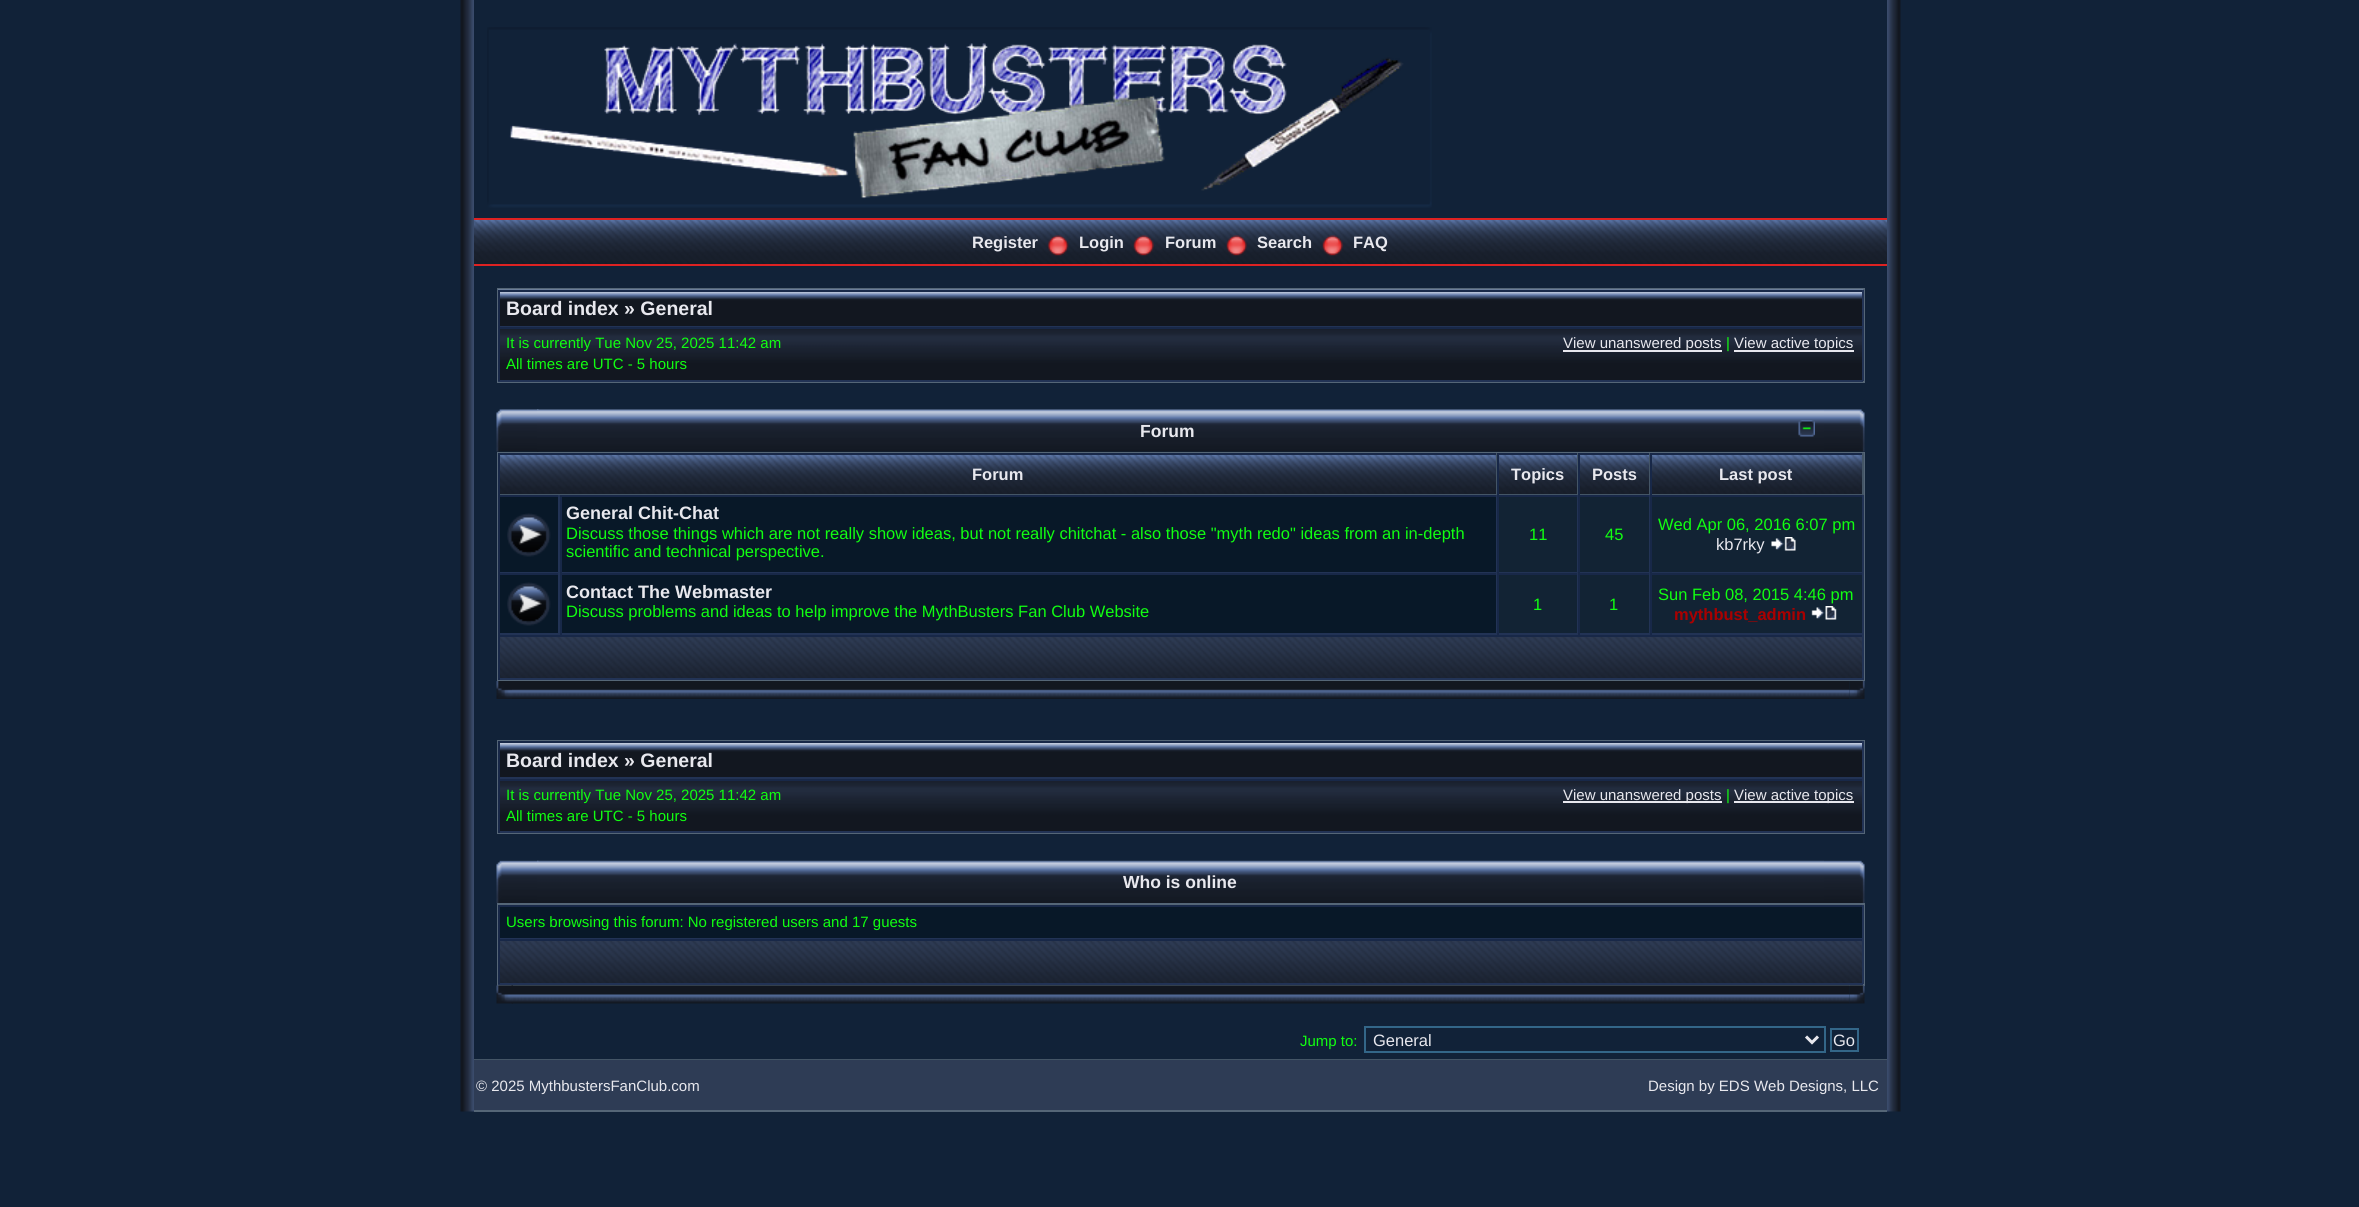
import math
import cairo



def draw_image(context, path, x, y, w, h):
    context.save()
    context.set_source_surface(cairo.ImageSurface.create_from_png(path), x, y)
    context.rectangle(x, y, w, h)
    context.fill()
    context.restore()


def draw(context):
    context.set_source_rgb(17 / 255, 34 / 255, 56 / 255)
    context.paint()
    draw_image(context, "images/1.png", 460, 0, 14, 1112)
    draw_image(context, "images/2.png", 487, 27, 945, 181)
    draw_image(context, "images/3.png", 474, 220, 1413, 44)
    context.set_source_rgb(221 / 255, 34 / 255, 34 / 255)
    context.rectangle(474, 218, 1413, 2)
    context.fill()
    context.rectangle(474, 264, 1413, 2)
    context.fill()
    draw_image(context, "images/4.png", 1047, 235, 22, 21)
    draw_image(context, "images/5.png", 1133, 235, 21, 21)
    draw_image(context, "images/6.png", 1226, 235, 21, 21)
    draw_image(context, "images/7.png", 1322, 235, 21, 21)
    context.rectangle(498, 289, 1366, 93)
    context.set_source_rgb(85 / 255, 102 / 255, 119 / 255)
    context.stroke()
    draw_image(context, "images/8.png", 498, 289, 1365, 37)
    context.set_source_rgb(24 / 255, 40 / 255, 72 / 255)
    context.rectangle(498, 290, 1365, 2)
    context.fill()
    context.set_source_rgb(34 / 255, 51 / 255, 85 / 255)
    context.rectangle(1862, 290, 2, 37)
    context.fill()
    context.rectangle(498, 326, 1365, 1)
    context.fill()
    context.set_source_rgb(24 / 255, 40 / 255, 72 / 255)
    context.rectangle(498, 290, 2, 37)
    context.fill()
    draw_image(context, "images/9.png", 500, 329, 1362, 51)
    context.rectangle(498, 327, 1365, 2)
    context.fill()
    context.set_source_rgb(34 / 255, 51 / 255, 85 / 255)
    context.rectangle(1862, 327, 2, 54)
    context.fill()
    context.rectangle(498, 380, 1365, 2)
    context.fill()
    context.set_source_rgb(24 / 255, 40 / 255, 72 / 255)
    context.rectangle(498, 327, 2, 54)
    context.fill()
    context.set_source_rgb(232 / 255, 232 / 255, 238 / 255)
    context.rectangle(1563, 350, 159, 2)
    context.fill()
    context.rectangle(1734, 350, 120, 2)
    context.fill()
    draw_image(context, "images/10.png", 496, 409, 43, 43)
    draw_image(context, "images/11.png", 1824, 409, 41, 43)
    draw_image(context, "images/12.png", 537, 409, 1287, 43)
    draw_image(context, "images/13.png", 1798, 420, 17, 17)
    context.rectangle(498, 453, 1366, 227)
    context.set_source_rgb(85 / 255, 102 / 255, 119 / 255)
    context.stroke()
    draw_image(context, "images/14.png", 500, 455, 996, 39)
    context.set_source_rgb(24 / 255, 40 / 255, 72 / 255)
    context.rectangle(498, 453, 1365, 2)
    context.fill()
    context.set_source_rgb(68 / 255, 85 / 255, 102 / 255)
    context.rectangle(1496, 453, 1, 42)
    context.fill()
    context.rectangle(498, 494, 999, 1)
    context.fill()
    context.set_source_rgb(24 / 255, 40 / 255, 72 / 255)
    context.rectangle(498, 453, 2, 42)
    context.fill()
    draw_image(context, "images/15.png", 1499, 455, 78, 39)
    context.set_source_rgb(68 / 255, 85 / 255, 102 / 255)
    context.rectangle(1577, 453, 1, 42)
    context.fill()
    context.rectangle(1497, 494, 81, 1)
    context.fill()
    context.set_source_rgb(24 / 255, 40 / 255, 72 / 255)
    context.rectangle(1497, 453, 2, 42)
    context.fill()
    draw_image(context, "images/16.png", 1580, 455, 69, 39)
    context.set_source_rgb(68 / 255, 85 / 255, 102 / 255)
    context.rectangle(1649, 453, 1, 42)
    context.fill()
    context.rectangle(1578, 494, 72, 1)
    context.fill()
    context.set_source_rgb(24 / 255, 40 / 255, 72 / 255)
    context.rectangle(1578, 453, 2, 42)
    context.fill()
    draw_image(context, "images/17.png", 1652, 455, 210, 39)
    context.set_source_rgb(68 / 255, 85 / 255, 102 / 255)
    context.rectangle(1862, 453, 2, 42)
    context.fill()
    context.rectangle(1650, 494, 213, 1)
    context.fill()
    context.set_source_rgb(24 / 255, 40 / 255, 72 / 255)
    context.rectangle(1650, 453, 2, 42)
    context.fill()
    context.set_source_rgb(8 / 255, 24 / 255, 40 / 255)
    context.rectangle(500, 497, 58, 75)
    context.fill()
    context.set_source_rgb(24 / 255, 40 / 255, 72 / 255)
    context.rectangle(498, 495, 1365, 2)
    context.fill()
    context.set_source_rgb(34 / 255, 51 / 255, 85 / 255)
    context.rectangle(558, 495, 2, 78)
    context.fill()
    context.rectangle(498, 572, 62, 1)
    context.fill()
    context.set_source_rgb(24 / 255, 40 / 255, 72 / 255)
    context.rectangle(498, 495, 2, 78)
    context.fill()
    draw_image(context, "images/18.png", 507, 513, 44, 44)
    context.set_source_rgb(8 / 255, 24 / 255, 40 / 255)
    context.rectangle(562, 497, 934, 75)
    context.fill()
    context.set_source_rgb(34 / 255, 51 / 255, 85 / 255)
    context.rectangle(1496, 495, 1, 78)
    context.fill()
    context.rectangle(560, 572, 937, 1)
    context.fill()
    context.set_source_rgb(24 / 255, 40 / 255, 72 / 255)
    context.rectangle(560, 495, 2, 78)
    context.fill()
    context.set_source_rgb(18 / 255, 35 / 255, 52 / 255)
    context.rectangle(1499, 497, 78, 75)
    context.fill()
    context.set_source_rgb(34 / 255, 51 / 255, 85 / 255)
    context.rectangle(1577, 495, 1, 78)
    context.fill()
    context.rectangle(1497, 572, 81, 1)
    context.fill()
    context.set_source_rgb(24 / 255, 40 / 255, 72 / 255)
    context.rectangle(1497, 495, 2, 78)
    context.fill()
    context.set_source_rgb(18 / 255, 35 / 255, 52 / 255)
    context.rectangle(1580, 497, 69, 75)
    context.fill()
    context.set_source_rgb(34 / 255, 51 / 255, 85 / 255)
    context.rectangle(1649, 495, 1, 78)
    context.fill()
    context.rectangle(1578, 572, 72, 1)
    context.fill()
    context.set_source_rgb(24 / 255, 40 / 255, 72 / 255)
    context.rectangle(1578, 495, 2, 78)
    context.fill()
    context.set_source_rgb(18 / 255, 35 / 255, 52 / 255)
    context.rectangle(1652, 497, 210, 75)
    context.fill()
    context.set_source_rgb(34 / 255, 51 / 255, 85 / 255)
    context.rectangle(1862, 495, 2, 78)
    context.fill()
    context.rectangle(1650, 572, 213, 1)
    context.fill()
    context.set_source_rgb(24 / 255, 40 / 255, 72 / 255)
    context.rectangle(1650, 495, 2, 78)
    context.fill()
    draw_image(context, "images/19.png", 1771, 537, 25, 14)
    context.set_source_rgb(8 / 255, 24 / 255, 40 / 255)
    context.rectangle(500, 575, 58, 58)
    context.fill()
    context.set_source_rgb(24 / 255, 40 / 255, 72 / 255)
    context.rectangle(498, 573, 1365, 2)
    context.fill()
    context.set_source_rgb(34 / 255, 51 / 255, 85 / 255)
    context.rectangle(558, 573, 2, 62)
    context.fill()
    context.rectangle(498, 633, 62, 2)
    context.fill()
    context.set_source_rgb(24 / 255, 40 / 255, 72 / 255)
    context.rectangle(498, 573, 2, 62)
    context.fill()
    draw_image(context, "images/18.png", 507, 582, 44, 44)
    context.set_source_rgb(8 / 255, 24 / 255, 40 / 255)
    context.rectangle(562, 575, 934, 58)
    context.fill()
    context.set_source_rgb(34 / 255, 51 / 255, 85 / 255)
    context.rectangle(1496, 573, 1, 62)
    context.fill()
    context.rectangle(560, 633, 937, 2)
    context.fill()
    context.set_source_rgb(24 / 255, 40 / 255, 72 / 255)
    context.rectangle(560, 573, 2, 62)
    context.fill()
    context.set_source_rgb(18 / 255, 35 / 255, 52 / 255)
    context.rectangle(1499, 575, 78, 58)
    context.fill()
    context.set_source_rgb(34 / 255, 51 / 255, 85 / 255)
    context.rectangle(1577, 573, 1, 62)
    context.fill()
    context.rectangle(1497, 633, 81, 2)
    context.fill()
    context.set_source_rgb(24 / 255, 40 / 255, 72 / 255)
    context.rectangle(1497, 573, 2, 62)
    context.fill()
    context.set_source_rgb(18 / 255, 35 / 255, 52 / 255)
    context.rectangle(1580, 575, 69, 58)
    context.fill()
    context.set_source_rgb(34 / 255, 51 / 255, 85 / 255)
    context.rectangle(1649, 573, 1, 62)
    context.fill()
    context.rectangle(1578, 633, 72, 2)
    context.fill()
    context.set_source_rgb(24 / 255, 40 / 255, 72 / 255)
    context.rectangle(1578, 573, 2, 62)
    context.fill()
    context.set_source_rgb(18 / 255, 35 / 255, 52 / 255)
    context.rectangle(1652, 575, 210, 58)
    context.fill()
    context.set_source_rgb(34 / 255, 51 / 255, 85 / 255)
    context.rectangle(1862, 573, 2, 62)
    context.fill()
    context.rectangle(1650, 633, 213, 2)
    context.fill()
    context.set_source_rgb(24 / 255, 40 / 255, 72 / 255)
    context.rectangle(1650, 573, 2, 62)
    context.fill()
    draw_image(context, "images/20.png", 1811, 606, 26, 14)
    draw_image(context, "images/21.png", 500, 637, 1362, 41)
    context.rectangle(498, 635, 1365, 2)
    context.fill()
    context.set_source_rgb(34 / 255, 51 / 255, 85 / 255)
    context.rectangle(1862, 635, 2, 45)
    context.fill()
    context.rectangle(498, 678, 1365, 2)
    context.fill()
    context.set_source_rgb(24 / 255, 40 / 255, 72 / 255)
    context.rectangle(498, 635, 2, 45)
    context.fill()
    draw_image(context, "images/22.png", 496, 681, 16, 18)
    draw_image(context, "images/23.png", 1849, 681, 16, 18)
    draw_image(context, "images/24.png", 512, 681, 1338, 18)
    context.rectangle(498, 741, 1366, 92)
    context.set_source_rgb(85 / 255, 102 / 255, 119 / 255)
    context.stroke()
    draw_image(context, "images/25.png", 500, 743, 1362, 34)
    context.set_source_rgb(24 / 255, 40 / 255, 72 / 255)
    context.rectangle(498, 741, 1365, 2)
    context.fill()
    context.set_source_rgb(34 / 255, 51 / 255, 85 / 255)
    context.rectangle(1862, 741, 2, 38)
    context.fill()
    context.rectangle(498, 777, 1365, 2)
    context.fill()
    context.set_source_rgb(24 / 255, 40 / 255, 72 / 255)
    context.rectangle(498, 741, 2, 38)
    context.fill()
    draw_image(context, "images/26.png", 500, 781, 1362, 50)
    context.rectangle(498, 779, 1365, 2)
    context.fill()
    context.set_source_rgb(34 / 255, 51 / 255, 85 / 255)
    context.rectangle(1862, 779, 2, 54)
    context.fill()
    context.rectangle(498, 831, 1365, 2)
    context.fill()
    context.set_source_rgb(24 / 255, 40 / 255, 72 / 255)
    context.rectangle(498, 779, 2, 54)
    context.fill()
    context.set_source_rgb(232 / 255, 232 / 255, 238 / 255)
    context.rectangle(1563, 801, 159, 2)
    context.fill()
    context.rectangle(1734, 801, 120, 2)
    context.fill()
    draw_image(context, "images/27.png", 496, 860, 43, 43)
    draw_image(context, "images/28.png", 1824, 860, 41, 43)
    draw_image(context, "images/29.png", 537, 860, 1287, 43)
    context.rectangle(498, 904, 1366, 81)
    context.set_source_rgb(85 / 255, 102 / 255, 119 / 255)
    context.stroke()
    context.set_source_rgb(8 / 255, 24 / 255, 40 / 255)
    context.rectangle(500, 907, 1362, 31)
    context.fill()
    context.set_source_rgb(24 / 255, 40 / 255, 72 / 255)
    context.rectangle(498, 905, 1365, 2)
    context.fill()
    context.set_source_rgb(34 / 255, 51 / 255, 85 / 255)
    context.rectangle(1862, 905, 2, 34)
    context.fill()
    context.rectangle(498, 938, 1365, 1)
    context.fill()
    context.set_source_rgb(24 / 255, 40 / 255, 72 / 255)
    context.rectangle(498, 905, 2, 34)
    context.fill()
    draw_image(context, "images/30.png", 500, 941, 1362, 42)
    context.rectangle(498, 939, 1365, 2)
    context.fill()
    context.set_source_rgb(34 / 255, 51 / 255, 85 / 255)
    context.rectangle(1862, 939, 2, 45)
    context.fill()
    context.rectangle(498, 983, 1365, 2)
    context.fill()
    context.set_source_rgb(24 / 255, 40 / 255, 72 / 255)
    context.rectangle(498, 939, 2, 45)
    context.fill()
    draw_image(context, "images/31.png", 496, 985, 17, 19)
    draw_image(context, "images/32.png", 1849, 985, 16, 19)
    draw_image(context, "images/33.png", 511, 985, 1339, 19)
    context.rectangle(1365, 1027, 460, 25)
    context.set_source_rgb(51 / 255, 102 / 255, 136 / 255)
    context.stroke()
    context.new_path()
    context.move_to(1806, 1036.5)
    context.line_to(1812, 1042.5)
    context.line_to(1818, 1036.5)
    context.set_source_rgb(232 / 255, 232 / 255, 238 / 255)
    context.set_line_width(3)
    context.stroke()
    context.rectangle(1831, 1029, 27, 22)
    context.set_source_rgb(51 / 255, 102 / 255, 136 / 255)
    context.set_line_width(2)
    context.stroke()
    context.set_source_rgb(68 / 255, 85 / 255, 102 / 255)
    context.rectangle(474, 1059, 1413, 1)
    context.fill()
    context.set_source_rgb(85 / 255, 102 / 255, 119 / 255)
    context.rectangle(474, 1110, 1413, 2)
    context.fill()
    context.set_source_rgb(46 / 255, 60 / 255, 85 / 255)
    context.rectangle(474, 1060, 1413, 50)
    context.fill()
    draw_image(context, "images/34.png", 1887, 0, 14, 1112)
    context.select_font_face("Liberation Sans", cairo.FontSlant.NORMAL, cairo.FontWeight.BOLD)
    context.set_font_size(16.5)
    context.set_source_rgb(232 / 255, 232 / 255, 238 / 255)
    context.move_to(972, 248)
    context.show_text("Register")
    context.move_to(1079, 248)
    context.show_text("Login")
    context.move_to(1165, 248)
    context.show_text("Forum")
    context.move_to(1257, 248)
    context.show_text("Search")
    context.move_to(1353, 248)
    context.show_text("FAQ")
    context.set_font_size(19.5)
    context.move_to(506, 315)
    context.show_text("Board index » General")
    context.select_font_face("Liberation Sans")
    context.set_font_size(15)
    context.set_source_rgb(17 / 255, 1, 17 / 255)
    context.move_to(506, 348)
    context.show_text("It is currently Tue Nov 25, 2025 11:42 am")
    context.move_to(506, 369)
    context.show_text("All times are UTC - 5 hours")
    context.set_source_rgb(232 / 255, 232 / 255, 238 / 255)
    context.move_to(1563, 348)
    context.show_text("View unanswered posts")
    context.set_source_rgb(17 / 255, 1, 17 / 255)
    context.move_to(1726, 348)
    context.show_text("|")
    context.set_source_rgb(232 / 255, 232 / 255, 238 / 255)
    context.move_to(1734, 348)
    context.show_text("View active topics")
    context.select_font_face("Liberation Sans", cairo.FontSlant.NORMAL, cairo.FontWeight.BOLD)
    context.set_font_size(17.5)
    context.move_to(1140, 437)
    context.show_text("Forum")
    context.set_font_size(16.5)
    context.move_to(972, 480)
    context.show_text("Forum")
    context.move_to(1511, 480)
    context.show_text("Topics")
    context.move_to(1592, 480)
    context.show_text("Posts")
    context.move_to(1719, 480)
    context.show_text("Last post")
    context.set_font_size(18)
    context.move_to(566, 519)
    context.show_text("General Chit-Chat")
    context.select_font_face("Liberation Sans")
    context.set_font_size(16.5)
    context.set_source_rgb(17 / 255, 1, 17 / 255)
    context.move_to(566, 539)
    context.show_text("Discuss those things which are not really show ideas, but not really chitchat - also those \"myth redo\" ideas from an in-depth")
    context.move_to(566, 557)
    context.show_text("scientific and technical perspective.")
    context.move_to(1529, 540)
    context.show_text("11")
    context.move_to(1605, 540)
    context.show_text("45")
    context.move_to(1658, 530)
    context.show_text("Wed Apr 06, 2016 6:07 pm")
    context.set_source_rgb(232 / 255, 232 / 255, 238 / 255)
    context.move_to(1716, 550)
    context.show_text("kb7rky")
    context.select_font_face("Liberation Sans", cairo.FontSlant.NORMAL, cairo.FontWeight.BOLD)
    context.set_font_size(18)
    context.move_to(566, 598)
    context.show_text("Contact The Webmaster")
    context.select_font_face("Liberation Sans")
    context.set_font_size(16.5)
    context.set_source_rgb(17 / 255, 1, 17 / 255)
    context.move_to(566, 617)
    context.show_text("Discuss problems and ideas to help improve the MythBusters Fan Club Website")
    context.move_to(1533, 610)
    context.show_text("1")
    context.move_to(1609, 610)
    context.show_text("1")
    context.move_to(1658, 600)
    context.show_text("Sun Feb 08, 2015 4:46 pm")
    context.select_font_face("Liberation Sans", cairo.FontSlant.NORMAL, cairo.FontWeight.BOLD)
    context.set_source_rgb(170 / 255, 0, 0)
    context.move_to(1674, 620)
    context.show_text("mythbust_admin")
    context.set_font_size(19.5)
    context.set_source_rgb(232 / 255, 232 / 255, 238 / 255)
    context.move_to(506, 767)
    context.show_text("Board index » General")
    context.select_font_face("Liberation Sans")
    context.set_font_size(15)
    context.set_source_rgb(17 / 255, 1, 17 / 255)
    context.move_to(506, 800)
    context.show_text("It is currently Tue Nov 25, 2025 11:42 am")
    context.move_to(506, 821)
    context.show_text("All times are UTC - 5 hours")
    context.set_source_rgb(232 / 255, 232 / 255, 238 / 255)
    context.move_to(1563, 800)
    context.show_text("View unanswered posts")
    context.set_source_rgb(17 / 255, 1, 17 / 255)
    context.move_to(1726, 800)
    context.show_text("|")
    context.set_source_rgb(232 / 255, 232 / 255, 238 / 255)
    context.move_to(1734, 800)
    context.show_text("View active topics")
    context.select_font_face("Liberation Sans", cairo.FontSlant.NORMAL, cairo.FontWeight.BOLD)
    context.set_font_size(17.5)
    context.move_to(1123, 888)
    context.show_text("Who is online")
    context.select_font_face("Liberation Sans")
    context.set_font_size(15)
    context.set_source_rgb(17 / 255, 1, 17 / 255)
    context.move_to(506, 927)
    context.show_text("Users browsing this forum: No registered users and 17 guests")
    context.move_to(1300, 1046)
    context.show_text("Jump to:")
    context.set_font_size(16.5)
    context.set_source_rgb(232 / 255, 232 / 255, 238 / 255)
    context.move_to(1373, 1046)
    context.show_text("General")
    context.move_to(1833, 1046)
    context.show_text("Go")
    context.set_font_size(15)
    context.move_to(476, 1091)
    context.show_text("© 2025 MythbustersFanClub.com")
    context.move_to(1648, 1091)
    context.show_text("Design by EDS Web Designs, LLC")


surface = cairo.ImageSurface(cairo.Format.RGB24, 2359, 1207)
context = cairo.Context(surface)
options = cairo.FontOptions()
options.set_hint_metrics(cairo.HintMetrics.OFF)
options.set_hint_style(cairo.HintStyle.NONE)
context.set_font_options(options)
context.set_miter_limit(4)
draw(context)
surface.write_to_png("out.png")
